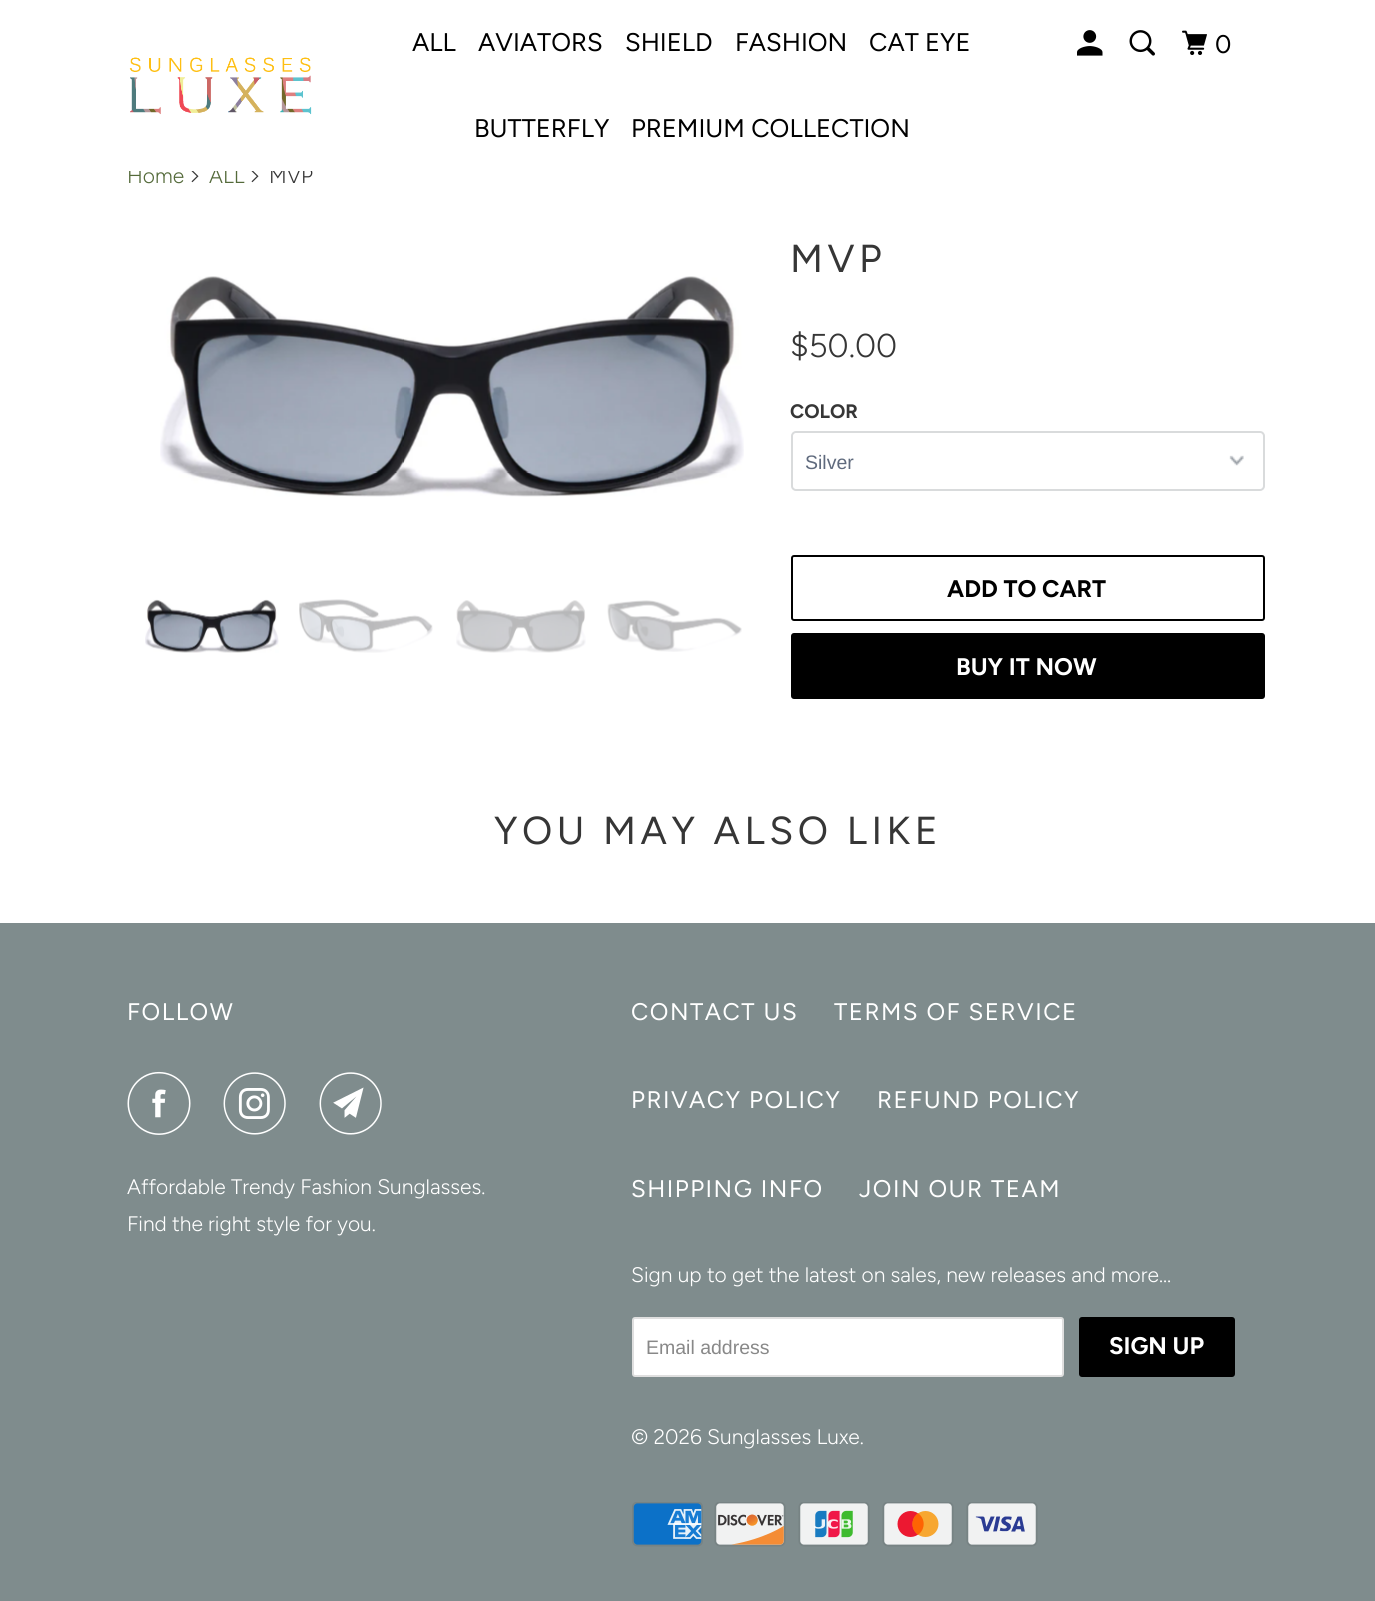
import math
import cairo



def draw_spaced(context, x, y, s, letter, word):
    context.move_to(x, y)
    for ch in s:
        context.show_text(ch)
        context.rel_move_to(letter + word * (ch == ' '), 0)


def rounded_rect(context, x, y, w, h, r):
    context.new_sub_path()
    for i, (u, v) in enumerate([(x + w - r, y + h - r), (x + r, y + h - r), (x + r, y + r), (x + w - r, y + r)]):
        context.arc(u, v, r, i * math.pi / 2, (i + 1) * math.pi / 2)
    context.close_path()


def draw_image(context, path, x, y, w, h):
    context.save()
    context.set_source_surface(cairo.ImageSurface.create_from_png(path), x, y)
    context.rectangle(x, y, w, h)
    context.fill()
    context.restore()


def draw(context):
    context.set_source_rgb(1, 1, 1)
    context.paint()
    draw_image(context, "images/1.png", 129, 57, 183, 58)
    draw_image(context, "images/2.png", 1077, 30, 26, 26)
    draw_image(context, "images/3.png", 1129, 30, 26, 26)
    draw_image(context, "images/4.png", 1182, 30, 25, 25)
    draw_image(context, "images/5.png", 191, 171, 8, 12)
    draw_image(context, "images/5.png", 251, 171, 8, 12)
    draw_image(context, "images/6.png", 160, 276, 584, 221)
    draw_image(context, "images/7.png", 145, 599, 134, 54)
    draw_image(context, "images/8.png", 299, 599, 134, 54)
    draw_image(context, "images/9.png", 456, 600, 130, 53)
    draw_image(context, "images/10.png", 607, 600, 135, 52)
    draw_image(context, "images/11.png", 1229, 455, 15, 11)
    rounded_rect(context, 792, 432, 472, 58, 4)
    context.set_source_rgb(217 / 255, 219 / 255, 220 / 255)
    context.stroke()
    rounded_rect(context, 792, 556, 472, 64, 2)
    context.set_source_rgb(0, 0, 0)
    context.stroke()
    rounded_rect(context, 791, 633, 474, 66, 3)
    context.fill()
    context.set_source_rgb(127 / 255, 140 / 255, 141 / 255)
    context.rectangle(0, 923, 1375, 678)
    context.fill()
    draw_image(context, "images/12.png", 127, 1071, 64, 64)
    draw_image(context, "images/13.png", 223, 1072, 63, 63)
    draw_image(context, "images/14.png", 319, 1072, 63, 63)
    context.set_source_rgb(1, 1, 1)
    rounded_rect(context, 633, 1318, 430, 58, 2)
    context.fill_preserve()
    context.set_source_rgb(223 / 255, 223 / 255, 223 / 255)
    context.stroke()
    context.set_source_rgb(0, 0, 0)
    rounded_rect(context, 1079, 1317, 156, 60, 3)
    context.fill()
    draw_image(context, "images/15.png", 632, 1502, 71, 45)
    draw_image(context, "images/16.png", 714, 1502, 72, 45)
    draw_image(context, "images/17.png", 798, 1502, 72, 45)
    draw_image(context, "images/18.png", 882, 1502, 72, 45)
    draw_image(context, "images/19.png", 966, 1502, 72, 45)
    context.select_font_face("Figtree")
    context.set_font_size(25.5)
    context.move_to(412, 51)
    context.show_text("ALL")
    context.move_to(478, 51)
    context.show_text("AVIATORS")
    context.move_to(625, 51)
    context.show_text("SHIELD")
    context.move_to(735, 51)
    context.show_text("FASHION")
    context.move_to(869, 51)
    context.show_text("CAT EYE")
    context.move_to(474, 137)
    context.show_text("BUTTERFLY")
    context.move_to(631, 137)
    context.show_text("PREMIUM COLLECTION")
    context.move_to(1215, 53)
    context.show_text("0")
    context.select_font_face("Figtree Light")
    context.set_font_size(21)
    context.set_source_rgb(84 / 255, 106 / 255, 58 / 255)
    context.move_to(127, 183)
    context.show_text("Home")
    context.move_to(209, 183)
    context.show_text("ALL")
    context.set_source_rgb(54 / 255, 54 / 255, 54 / 255)
    context.move_to(269, 183)
    context.show_text("MVP")
    context.set_source_rgb(1, 1, 1)
    context.rectangle(128, 168, 184, 3)
    context.fill()
    context.select_font_face("Figtree")
    context.set_font_size(39)
    context.set_source_rgb(54 / 255, 54 / 255, 54 / 255)
    draw_spaced(context, 790, 272, "MVP", 4.5, 0)
    context.select_font_face("Figtree Light")
    context.set_font_size(33)
    context.move_to(790, 357)
    context.show_text("$50.00")
    context.select_font_face("Figtree", cairo.FontSlant.NORMAL, cairo.FontWeight.BOLD)
    context.set_font_size(19.5)
    context.move_to(790, 418)
    context.show_text("COLOR")
    context.select_font_face("Liberation Sans")
    context.set_source_rgb(95 / 255, 106 / 255, 125 / 255)
    context.move_to(805, 469)
    context.show_text("Silver")
    context.select_font_face("Figtree", cairo.FontSlant.NORMAL, cairo.FontWeight.BOLD)
    context.set_font_size(24)
    context.set_source_rgb(0, 0, 0)
    context.move_to(947, 597)
    context.show_text("ADD TO CART")
    context.set_source_rgb(1, 1, 1)
    context.move_to(956, 675)
    context.show_text("BUY IT NOW")
    context.select_font_face("Figtree")
    context.set_font_size(39)
    context.set_source_rgb(54 / 255, 54 / 255, 54 / 255)
    draw_spaced(context, 494, 844, "YOU MAY ALSO LIKE", 4.5, 0)
    context.set_font_size(24)
    context.set_source_rgb(1, 1, 1)
    draw_spaced(context, 127, 1020, "FOLLOW", 1.5, 0)
    context.select_font_face("Figtree Light")
    context.set_font_size(21)
    context.move_to(127, 1194)
    context.show_text("Affordable Trendy Fashion Sunglasses.")
    context.move_to(127, 1231)
    context.show_text("Find the right style for you.")
    context.select_font_face("Figtree")
    context.set_font_size(24)
    draw_spaced(context, 631, 1020, "CONTACT US", 1.5, 0)
    draw_spaced(context, 834, 1020, "TERMS OF SERVICE", 1.5, 0)
    draw_spaced(context, 631, 1108, "PRIVACY POLICY", 1.5, 0)
    draw_spaced(context, 877, 1108, "REFUND POLICY", 1.5, 0)
    draw_spaced(context, 631, 1197, "SHIPPING INFO", 1.5, 0)
    draw_spaced(context, 859, 1197, "JOIN OUR TEAM", 1.5, 0)
    context.select_font_face("Figtree Light")
    context.set_font_size(21)
    context.move_to(631, 1282)
    context.show_text("Sign up to get the latest on sales, new releases and more…")
    context.select_font_face("Liberation Sans")
    context.set_font_size(19.5)
    context.set_source_rgb(136 / 255, 136 / 255, 136 / 255)
    context.move_to(646, 1354)
    context.show_text("Email address")
    context.select_font_face("Figtree", cairo.FontSlant.NORMAL, cairo.FontWeight.BOLD)
    context.set_font_size(24)
    context.set_source_rgb(1, 1, 1)
    context.move_to(1109, 1354)
    context.show_text("SIGN UP")
    context.select_font_face("Figtree Light")
    context.set_font_size(21)
    context.move_to(631, 1444)
    context.show_text("© 2026 Sunglasses Luxe.")


surface = cairo.ImageSurface(cairo.Format.RGB24, 1375, 1601)
context = cairo.Context(surface)
options = cairo.FontOptions()
options.set_hint_metrics(cairo.HintMetrics.OFF)
options.set_hint_style(cairo.HintStyle.NONE)
context.set_font_options(options)
context.set_miter_limit(4)
draw(context)
surface.write_to_png("out.png")
